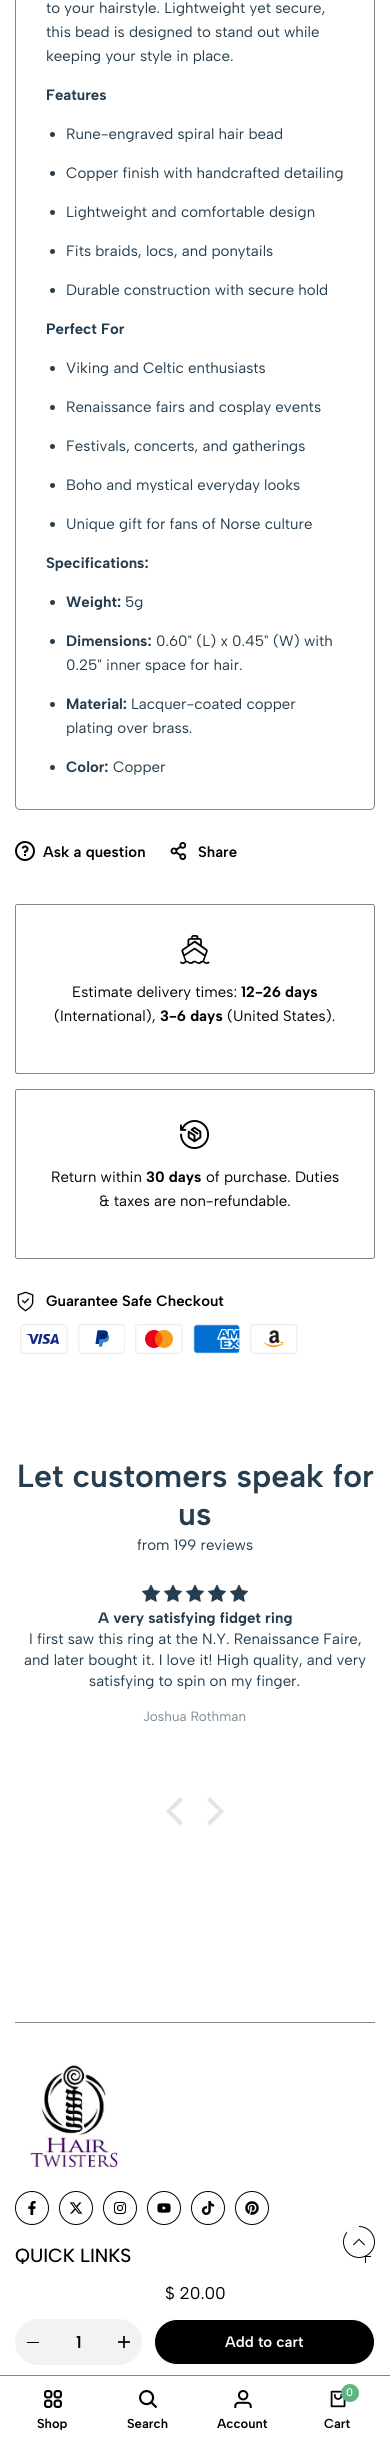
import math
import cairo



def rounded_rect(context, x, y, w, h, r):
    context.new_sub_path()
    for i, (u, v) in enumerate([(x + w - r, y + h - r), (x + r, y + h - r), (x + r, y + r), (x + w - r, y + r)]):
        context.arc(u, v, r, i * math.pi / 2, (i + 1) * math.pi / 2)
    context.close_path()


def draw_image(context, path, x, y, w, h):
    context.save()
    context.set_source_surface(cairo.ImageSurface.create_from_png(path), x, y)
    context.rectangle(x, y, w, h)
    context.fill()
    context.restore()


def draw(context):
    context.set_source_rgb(1, 1, 1)
    context.paint()
    rounded_rect(context, 15.5, -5.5, 359, 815, 4.5)
    context.set_source_rgb(133 / 255, 132 / 255, 132 / 255)
    context.set_line_width(1)
    context.stroke()
    context.set_source_rgb(37 / 255, 61 / 255, 78 / 255)
    context.arc(52.5, 134.5, 2.5, 0, 2 * math.pi)
    context.fill()
    context.arc(52.5, 173.5, 2.5, 0, 2 * math.pi)
    context.fill()
    context.arc(52.5, 212.5, 2.5, 0, 2 * math.pi)
    context.fill()
    context.arc(52.5, 251.5, 2.5, 0, 2 * math.pi)
    context.fill()
    context.arc(52.5, 290.5, 2.5, 0, 2 * math.pi)
    context.fill()
    context.arc(52.5, 368.5, 2.5, 0, 2 * math.pi)
    context.fill()
    context.arc(52.5, 407.5, 2.5, 0, 2 * math.pi)
    context.fill()
    context.arc(52.5, 446.5, 2.5, 0, 2 * math.pi)
    context.fill()
    context.arc(52.5, 485.5, 2.5, 0, 2 * math.pi)
    context.fill()
    context.arc(52.5, 524.5, 2.5, 0, 2 * math.pi)
    context.fill()
    context.arc(52.5, 602.5, 2.5, 0, 2 * math.pi)
    context.fill()
    context.arc(52.5, 641.5, 2.5, 0, 2 * math.pi)
    context.fill()
    context.arc(52.5, 704.5, 2.5, 0, 2 * math.pi)
    context.fill()
    context.arc(52.5, 767.5, 2.5, 0, 2 * math.pi)
    context.fill()
    draw_image(context, "images/1.png", 15, 841, 20, 20)
    draw_image(context, "images/2.png", 170, 842, 17, 19)
    rounded_rect(context, 15.5, 904.5, 359, 169, 2)
    context.set_source_rgb(133 / 255, 132 / 255, 132 / 255)
    context.stroke()
    draw_image(context, "images/3.png", 180, 935, 30, 29)
    rounded_rect(context, 15.5, 1089.5, 359, 169, 2)
    context.stroke()
    draw_image(context, "images/4.png", 180, 1120, 30, 29)
    draw_image(context, "images/5.png", 17, 1291, 17, 21)
    draw_image(context, "images/6.png", 20, 1324, 48, 30)
    draw_image(context, "images/7.png", 78, 1324, 47, 30)
    draw_image(context, "images/8.png", 135, 1324, 48, 30)
    draw_image(context, "images/9.png", 193, 1324, 47, 30)
    draw_image(context, "images/10.png", 250, 1324, 48, 30)
    context.rectangle(0, 2375, 390, 1)
    context.fill()
    context.set_source_rgb(242 / 255, 242 / 255, 242 / 255)
    rounded_rect(context, 15, 2319, 127, 46, 23)
    context.fill()
    context.set_source_rgb(0, 0, 0)
    context.rectangle(27, 2342, 12, 1)
    context.fill()
    draw_image(context, "images/11.png", 118, 2336, 12, 12)
    rounded_rect(context, 154.5, 2319.5, 220, 45, 22.5)
    context.fill_preserve()
    context.set_source_rgb(1, 1, 1)
    context.stroke()
    draw_image(context, "images/12.png", 142, 1584, 18, 18)
    draw_image(context, "images/12.png", 164, 1584, 18, 18)
    draw_image(context, "images/12.png", 186, 1584, 18, 18)
    draw_image(context, "images/12.png", 208, 1584, 18, 18)
    draw_image(context, "images/12.png", 230, 1584, 18, 18)
    context.set_source_rgb(228 / 255, 228 / 255, 228 / 255)
    context.new_path()
    context.move_to(166, 1811.5)
    context.line_to(180, 1797)
    context.line_to(183, 1800)
    context.line_to(168.5, 1814)
    context.close_path()
    context.fill()
    context.new_path()
    context.move_to(166, 1811.5)
    context.line_to(168.5, 1808.5)
    context.line_to(183, 1822.5)
    context.line_to(180, 1825.5)
    context.close_path()
    context.move_to(207, 1800)
    context.line_to(210, 1797)
    context.line_to(224, 1811.5)
    context.line_to(221.5, 1814)
    context.close_path()
    context.fill()
    context.new_path()
    context.move_to(207, 1822.5)
    context.line_to(221.5, 1808.5)
    context.line_to(224, 1811.5)
    context.line_to(210, 1825.5)
    context.close_path()
    context.fill()
    context.set_source_rgb(133 / 255, 132 / 255, 132 / 255)
    context.rectangle(15, 2022, 360, 1)
    context.fill()
    draw_image(context, "images/13.png", 29, 2065, 90, 105)
    context.arc(32, 2208, 16.5, 0, 2 * math.pi)
    context.set_source_rgb(0, 0, 0)
    context.stroke()
    draw_image(context, "images/14.png", 28, 2201, 8, 14)
    context.arc(76, 2208, 16.5, 0, 2 * math.pi)
    context.stroke()
    draw_image(context, "images/15.png", 69, 2202, 14, 12)
    context.arc(120, 2208, 16.5, 0, 2 * math.pi)
    context.stroke()
    draw_image(context, "images/16.png", 113, 2201, 14, 14)
    context.arc(164, 2208, 16.5, 0, 2 * math.pi)
    context.stroke()
    draw_image(context, "images/17.png", 157, 2203, 14, 10)
    context.arc(208, 2208, 16.5, 0, 2 * math.pi)
    context.stroke()
    draw_image(context, "images/18.png", 201, 2201, 14, 14)
    context.arc(252, 2208, 16.5, 0, 2 * math.pi)
    context.stroke()
    draw_image(context, "images/19.png", 245, 2201, 14, 14)
    context.rectangle(365, 2251, 1, 12)
    context.fill()
    context.rectangle(359, 2256, 12, 1)
    context.fill()
    draw_image(context, "images/20.png", 343, 2226, 32, 32)
    context.set_source_rgb(1, 1, 1)
    context.arc(359, 2242, 15, 0, 2 * math.pi)
    context.fill()
    draw_image(context, "images/21.png", 353, 2238, 12, 8)
    draw_image(context, "images/22.png", 44, 2390, 18, 18)
    draw_image(context, "images/23.png", 139, 2390, 18, 18)
    draw_image(context, "images/24.png", 234, 2390, 18, 18)
    draw_image(context, "images/25.png", 330, 2390, 16, 18)
    context.set_source_rgb(97 / 255, 180 / 255, 130 / 255)
    context.arc(350, 2393, 9, 0, 2 * math.pi)
    context.fill()
    context.select_font_face("Albert Sans")
    context.set_font_size(15)
    context.set_source_rgb(37 / 255, 61 / 255, 78 / 255)
    context.move_to(46, 13)
    context.show_text("to your hairstyle. Lightweight yet secure,")
    context.move_to(46, 37)
    context.show_text("this bead is designed to stand out while")
    context.move_to(46, 61)
    context.show_text("keeping your style in place.")
    context.select_font_face("Albert Sans", cairo.FontSlant.NORMAL, cairo.FontWeight.BOLD)
    context.move_to(46, 100)
    context.show_text("Features")
    context.select_font_face("Albert Sans")
    context.move_to(66, 139)
    context.show_text("Rune-engraved spiral hair bead")
    context.move_to(66, 178)
    context.show_text("Copper finish with handcrafted detailing")
    context.move_to(66, 217)
    context.show_text("Lightweight and comfortable design")
    context.move_to(66, 256)
    context.show_text("Fits braids, locs, and ponytails")
    context.move_to(66, 295)
    context.show_text("Durable construction with secure hold")
    context.select_font_face("Albert Sans", cairo.FontSlant.NORMAL, cairo.FontWeight.BOLD)
    context.move_to(46, 334)
    context.show_text("Perfect For")
    context.select_font_face("Albert Sans")
    context.move_to(66, 373)
    context.show_text("Viking and Celtic enthusiasts")
    context.move_to(66, 412)
    context.show_text("Renaissance fairs and cosplay events")
    context.move_to(66, 451)
    context.show_text("Festivals, concerts, and gatherings")
    context.move_to(66, 490)
    context.show_text("Boho and mystical everyday looks")
    context.move_to(66, 529)
    context.show_text("Unique gift for fans of Norse culture")
    context.select_font_face("Albert Sans", cairo.FontSlant.NORMAL, cairo.FontWeight.BOLD)
    context.move_to(46, 568)
    context.show_text("Specifications:")
    context.move_to(66, 607)
    context.show_text("Weight:")
    context.select_font_face("Albert Sans")
    context.move_to(125, 607)
    context.show_text("5g")
    context.select_font_face("Albert Sans", cairo.FontSlant.NORMAL, cairo.FontWeight.BOLD)
    context.move_to(66, 646)
    context.show_text("Dimensions:")
    context.select_font_face("Albert Sans")
    context.move_to(156, 646)
    context.show_text("0.60\" (L) x 0.45\" (W) with")
    context.move_to(66, 670)
    context.show_text("0.25\" inner space for hair.")
    context.select_font_face("Albert Sans", cairo.FontSlant.NORMAL, cairo.FontWeight.BOLD)
    context.move_to(66, 709)
    context.show_text("Material:")
    context.select_font_face("Albert Sans")
    context.move_to(131, 709)
    context.show_text("Lacquer-coated copper")
    context.move_to(66, 733)
    context.show_text("plating over brass.")
    context.select_font_face("Albert Sans", cairo.FontSlant.NORMAL, cairo.FontWeight.BOLD)
    context.move_to(66, 772)
    context.show_text("Color:")
    context.select_font_face("Albert Sans")
    context.move_to(113, 772)
    context.show_text("Copper")
    context.select_font_face("Albert Sans SemiBold")
    context.set_source_rgb(0, 0, 0)
    context.move_to(43, 857)
    context.show_text("Ask a question")
    context.move_to(198, 857)
    context.show_text("Share")
    context.select_font_face("Albert Sans")
    context.move_to(72, 997)
    context.show_text("Estimate delivery times:")
    context.select_font_face("Albert Sans", cairo.FontSlant.NORMAL, cairo.FontWeight.BOLD)
    context.move_to(241, 997)
    context.show_text("12-26 days")
    context.select_font_face("Albert Sans")
    context.move_to(54, 1021)
    context.show_text("(International),")
    context.select_font_face("Albert Sans", cairo.FontSlant.NORMAL, cairo.FontWeight.BOLD)
    context.move_to(160, 1021)
    context.show_text("3-6 days")
    context.select_font_face("Albert Sans")
    context.move_to(227, 1021)
    context.show_text("(United States).")
    context.move_to(51, 1182)
    context.show_text("Return within")
    context.select_font_face("Albert Sans", cairo.FontSlant.NORMAL, cairo.FontWeight.BOLD)
    context.move_to(146, 1182)
    context.show_text("30 days")
    context.select_font_face("Albert Sans")
    context.move_to(206, 1182)
    context.show_text("of purchase. Duties")
    context.move_to(99, 1206)
    context.show_text("& taxes are non-refundable.")
    context.select_font_face("Albert Sans SemiBold")
    context.move_to(46, 1306)
    context.show_text("Guarantee Safe Checkout")
    context.select_font_face("Albert Sans")
    context.set_font_size(17)
    context.move_to(165, 2299)
    context.show_text("$ 20.00")
    context.select_font_face("Albert Sans SemiBold")
    context.move_to(76, 2348)
    context.show_text("1")
    context.set_font_size(15)
    context.set_source_rgb(1, 1, 1)
    context.move_to(225, 2347)
    context.show_text("Add to cart")
    context.set_font_size(32)
    context.set_source_rgb(37 / 255, 61 / 255, 78 / 255)
    context.move_to(17, 1487)
    context.show_text("Let customers speak for")
    context.move_to(178, 1525)
    context.show_text("us")
    context.select_font_face("Albert Sans")
    context.set_font_size(15)
    context.move_to(137, 1550)
    context.show_text("from 199 reviews")
    context.select_font_face("Albert Sans", cairo.FontSlant.NORMAL, cairo.FontWeight.BOLD)
    context.move_to(98, 1623)
    context.show_text("A very satisfying fidget ring")
    context.select_font_face("Albert Sans")
    context.move_to(29, 1644)
    context.show_text("I first saw this ring at the N.Y. Renaissance Faire,")
    context.move_to(24, 1665)
    context.show_text("and later bought it. I love it! High quality, and very")
    context.move_to(89, 1686)
    context.show_text("satisfying to spin on my finger.")
    context.set_font_size(13.5)
    context.set_source_rgb(124 / 255, 139 / 255, 149 / 255)
    context.move_to(143, 1721)
    context.show_text("Joshua Rothman")
    context.select_font_face("Albert Sans Medium")
    context.set_font_size(19)
    context.set_source_rgb(0, 0, 0)
    context.move_to(15, 2262)
    context.show_text("QUICK LINKS")
    context.save()
    context.rectangle(15, 2417, 75, 13)
    context.clip()
    context.select_font_face("Albert Sans SemiBold")
    context.set_font_size(13)
    context.move_to(37, 2428)
    context.show_text("Shop")
    context.restore()
    context.select_font_face("Albert Sans SemiBold")
    context.set_font_size(13)
    context.move_to(127, 2428)
    context.show_text("Search")
    context.move_to(217, 2428)
    context.show_text("Account")
    context.select_font_face("Albert Sans Medium")
    context.set_font_size(11)
    context.set_source_rgb(1, 1, 1)
    context.move_to(346, 2396)
    context.show_text("0")
    context.select_font_face("Albert Sans SemiBold")
    context.set_font_size(13)
    context.set_source_rgb(0, 0, 0)
    context.move_to(324, 2428)
    context.show_text("Cart")


surface = cairo.ImageSurface(cairo.Format.RGB24, 390, 2443)
context = cairo.Context(surface)
options = cairo.FontOptions()
options.set_hint_metrics(cairo.HintMetrics.OFF)
options.set_hint_style(cairo.HintStyle.NONE)
context.set_font_options(options)
context.set_miter_limit(4)
draw(context)
surface.write_to_png("out.png")
